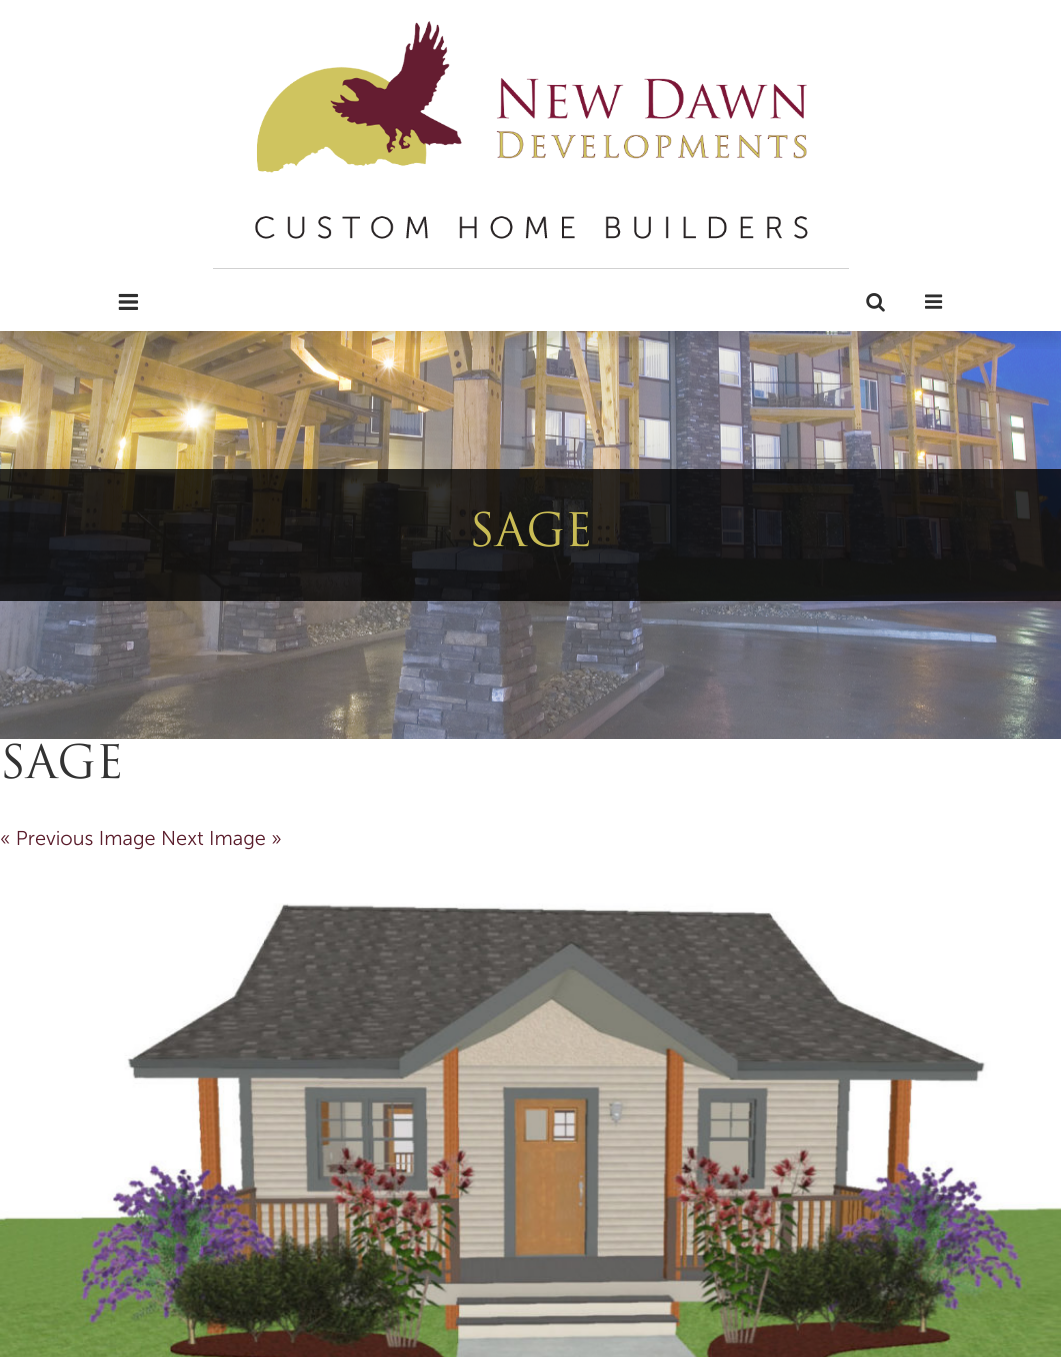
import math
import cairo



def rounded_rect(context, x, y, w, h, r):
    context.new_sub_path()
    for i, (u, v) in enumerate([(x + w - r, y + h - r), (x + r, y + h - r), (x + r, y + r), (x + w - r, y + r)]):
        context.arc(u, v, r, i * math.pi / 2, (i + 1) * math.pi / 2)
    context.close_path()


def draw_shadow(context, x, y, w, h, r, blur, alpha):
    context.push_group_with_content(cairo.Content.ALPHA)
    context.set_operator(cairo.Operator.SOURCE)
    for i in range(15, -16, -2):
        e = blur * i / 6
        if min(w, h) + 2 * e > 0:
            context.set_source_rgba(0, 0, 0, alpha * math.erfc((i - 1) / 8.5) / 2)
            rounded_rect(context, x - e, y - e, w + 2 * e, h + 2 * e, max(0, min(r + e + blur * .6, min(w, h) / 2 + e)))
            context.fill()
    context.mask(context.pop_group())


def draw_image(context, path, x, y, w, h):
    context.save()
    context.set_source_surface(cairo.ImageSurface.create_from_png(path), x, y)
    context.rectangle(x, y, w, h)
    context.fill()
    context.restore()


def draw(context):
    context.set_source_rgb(1, 1, 1)
    context.paint()
    draw_image(context, "images/1.png", 0, 331, 1061, 408)
    draw_image(context, "images/2.png", 255, 21, 553, 218)
    context.set_source_rgb(209 / 255, 209 / 255, 209 / 255)
    context.rectangle(213, 268, 636, 1)
    context.fill()
    context.save()
    context.rectangle(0, 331, 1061, 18)
    context.clip()
    context.set_source_rgb(0, 0, 0)
    draw_shadow(context, 0, 281, 1061, 63, 0, 6, 0.1)
    context.restore()
    draw_image(context, "images/3.png", 118, 293, 21, 17)
    draw_image(context, "images/4.png", 866, 293, 19, 19)
    draw_image(context, "images/5.png", 925, 294, 18, 15)
    context.set_source_rgba(0, 0, 0, 0.8)
    context.rectangle(0, 469, 1061, 132)
    context.fill()
    draw_image(context, "images/6.png", 0, 903, 1061, 454)
    context.select_font_face("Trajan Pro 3")
    context.set_font_size(45)
    context.set_source_rgb(201 / 255, 188 / 255, 84 / 255)
    context.move_to(469, 546)
    context.show_text("SAGE")
    context.set_source_rgb(51 / 255, 51 / 255, 51 / 255)
    context.move_to(0, 778)
    context.show_text("SAGE")
    context.select_font_face("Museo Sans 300 Light")
    context.set_font_size(20)
    context.set_source_rgb(90 / 255, 28 / 255, 43 / 255)
    context.move_to(0, 845)
    context.show_text("« Previous Image Next Image »")


surface = cairo.ImageSurface(cairo.Format.RGB24, 1061, 1357)
context = cairo.Context(surface)
options = cairo.FontOptions()
options.set_hint_metrics(cairo.HintMetrics.OFF)
options.set_hint_style(cairo.HintStyle.NONE)
context.set_font_options(options)
context.set_miter_limit(4)
draw(context)
surface.write_to_png("out.png")
